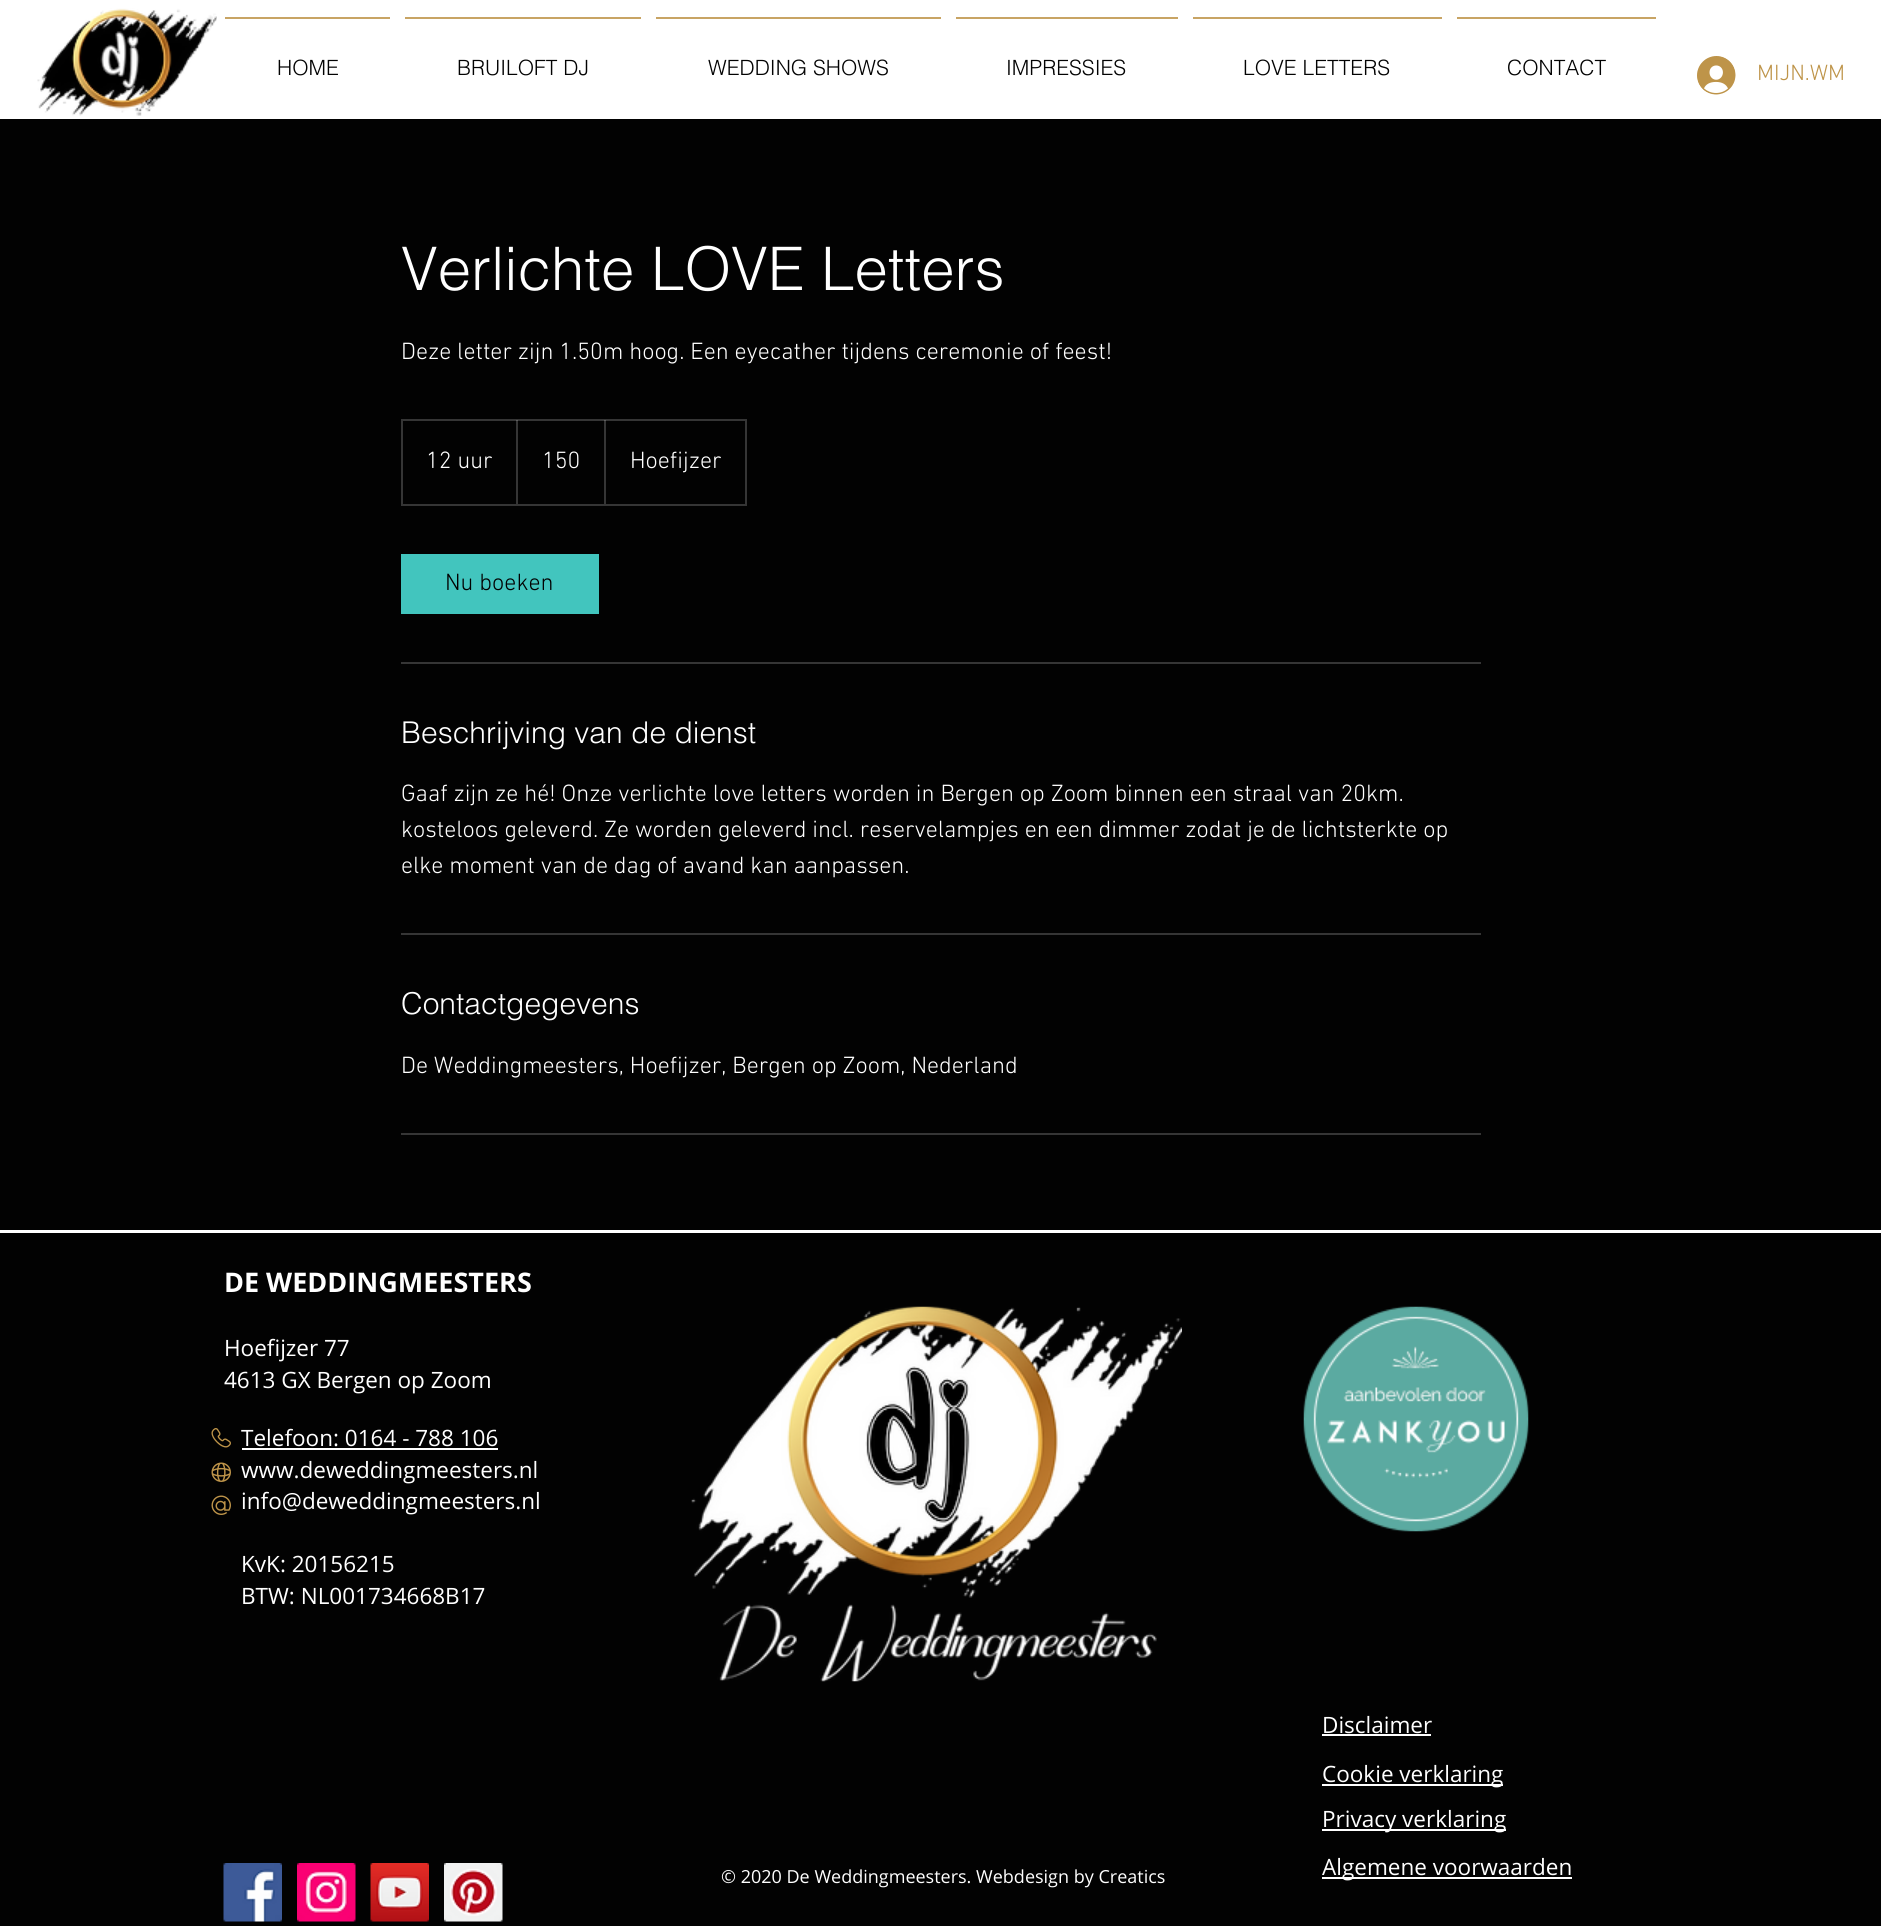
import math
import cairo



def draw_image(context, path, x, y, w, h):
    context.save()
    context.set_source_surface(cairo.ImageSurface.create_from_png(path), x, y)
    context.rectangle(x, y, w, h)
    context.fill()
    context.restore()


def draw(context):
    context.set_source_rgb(2 / 255, 2 / 255, 2 / 255)
    context.paint()
    context.set_source_rgb(1, 1, 1)
    context.rectangle(0, 0, 1881, 119)
    context.fill()
    draw_image(context, "images/1.png", 37, 8, 180, 108)
    context.set_source_rgb(200 / 255, 164 / 255, 100 / 255)
    context.rectangle(225, 17, 165, 2)
    context.fill()
    context.rectangle(405, 17, 236, 2)
    context.fill()
    context.rectangle(656, 17, 285, 2)
    context.fill()
    context.rectangle(956, 17, 222, 2)
    context.fill()
    context.rectangle(1193, 17, 249, 2)
    context.fill()
    context.rectangle(1457, 17, 199, 2)
    context.fill()
    draw_image(context, "images/2.png", 1697, 56, 39, 39)
    context.rectangle(402, 420, 344, 85)
    context.set_source_rgb(53 / 255, 53 / 255, 53 / 255)
    context.stroke()
    context.save()
    context.rectangle(402, 420, 344, 84)
    context.clip()
    context.set_source_rgba(1, 1, 1, 0.2)
    context.new_path()
    context.move_to(516, 504)
    context.line_to(516, 418)
    context.line_to(518, 420)
    context.line_to(518, 504)
    context.close_path()
    context.fill()
    context.new_path()
    context.move_to(604, 504)
    context.line_to(604, 418)
    context.line_to(606, 420)
    context.line_to(606, 504)
    context.close_path()
    context.fill()
    context.restore()
    context.set_source_rgb(66 / 255, 197 / 255, 190 / 255)
    context.rectangle(401, 554, 198, 60)
    context.fill()
    context.set_source_rgb(53 / 255, 53 / 255, 53 / 255)
    context.rectangle(401, 662, 1080, 2)
    context.fill()
    context.rectangle(401, 933, 1080, 2)
    context.fill()
    context.rectangle(401, 1133, 1080, 2)
    context.fill()
    context.set_source_rgb(1, 1, 1)
    context.rectangle(0, 1230, 1881, 3)
    context.fill()
    draw_image(context, "images/3.png", 211, 1428, 20, 20)
    context.rectangle(242, 1448, 256, 2)
    context.fill()
    draw_image(context, "images/4.png", 691, 1306, 491, 376)
    draw_image(context, "images/5.png", 1303, 1306, 226, 226)
    draw_image(context, "images/6.png", 211, 1462, 20, 20)
    draw_image(context, "images/7.png", 211, 1495, 20, 20)
    context.rectangle(1322, 1734, 109, 2)
    context.fill()
    context.rectangle(1322, 1784, 181, 2)
    context.fill()
    context.rectangle(1322, 1829, 184, 2)
    context.fill()
    draw_image(context, "images/8.png", 223, 1863, 59, 59)
    draw_image(context, "images/9.png", 297, 1863, 59, 59)
    draw_image(context, "images/10.png", 370, 1863, 59, 59)
    draw_image(context, "images/11.png", 444, 1863, 59, 59)
    context.rectangle(1322, 1877, 250, 2)
    context.fill()
    context.select_font_face("helvetica Light")
    context.set_font_size(21)
    context.set_source_rgb(2 / 255, 2 / 255, 2 / 255)
    context.move_to(277, 75)
    context.show_text("HOME")
    context.move_to(457, 75)
    context.show_text("BRUILOFT DJ")
    context.move_to(708, 75)
    context.show_text("WEDDING SHOWS")
    context.move_to(1006, 75)
    context.show_text("IMPRESSIES")
    context.move_to(1243, 75)
    context.show_text("LOVE LETTERS")
    context.move_to(1507, 75)
    context.show_text("CONTACT")
    context.select_font_face("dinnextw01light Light")
    context.set_font_size(22.5)
    context.set_source_rgb(190 / 255, 148 / 255, 73 / 255)
    context.move_to(1757, 80)
    context.show_text("MIJN.WM")
    context.select_font_face("helvetica Light")
    context.set_font_size(60)
    context.set_source_rgb(1, 1, 1)
    context.move_to(401, 290)
    context.show_text("Verlichte LOVE Letters")
    context.select_font_face("dinnextw01light Light")
    context.set_font_size(24)
    context.move_to(401, 359)
    context.show_text("Deze letter zijn 1.50m hoog. Een eyecather tijdens ceremonie of feest!")
    context.move_to(426, 468)
    context.show_text("12 uur")
    context.move_to(542, 468)
    context.show_text("150")
    context.move_to(630, 468)
    context.show_text("Hoefijzer")
    context.set_source_rgb(2 / 255, 2 / 255, 2 / 255)
    context.move_to(445, 590)
    context.show_text("Nu boeken")
    context.select_font_face("helvetica Light")
    context.set_font_size(30)
    context.set_source_rgb(1, 1, 1)
    context.move_to(401, 743)
    context.show_text("Beschrijving van de dienst")
    context.select_font_face("dinnextw01light Light")
    context.set_font_size(24)
    context.move_to(401, 801)
    context.show_text("Gaaf zijn ze hé! Onze verlichte love letters worden in Bergen op Zoom binnen een straal van 20km.")
    context.move_to(401, 837)
    context.show_text("kosteloos geleverd. Ze worden geleverd incl. reservelampjes en een dimmer zodat je de lichtsterkte op")
    context.move_to(401, 873)
    context.show_text("elke moment van de dag of avand kan aanpassen.")
    context.select_font_face("helvetica Light")
    context.set_font_size(30)
    context.move_to(401, 1014)
    context.show_text("Contactgegevens")
    context.select_font_face("dinnextw01light Light")
    context.set_font_size(24)
    context.move_to(401, 1073)
    context.show_text("De Weddingmeesters, Hoefijzer, Bergen op Zoom, Nederland")
    context.select_font_face("Open Sans", cairo.FontSlant.NORMAL, cairo.FontWeight.BOLD)
    context.set_font_size(27)
    context.move_to(224, 1292)
    context.show_text("DE WEDDINGMEESTERS")
    context.select_font_face("Open Sans")
    context.set_font_size(22.5)
    context.move_to(224, 1356)
    context.show_text("Hoefijzer 77")
    context.move_to(224, 1388)
    context.show_text("4613 GX Bergen op Zoom")
    context.move_to(241, 1446)
    context.show_text("Telefoon: 0164 - 788 106")
    context.move_to(241, 1478)
    context.show_text("www.deweddingmeesters.nl")
    context.move_to(241, 1509)
    context.show_text("info@deweddingmeesters.nl")
    context.move_to(241, 1572)
    context.show_text("KvK: 20156215")
    context.move_to(241, 1604)
    context.show_text("BTW: NL001734668B17")
    context.move_to(1322, 1733)
    context.show_text("Disclaimer")
    context.move_to(1322, 1782)
    context.show_text("Cookie verklaring")
    context.move_to(1322, 1827)
    context.show_text("Privacy verklaring")
    context.set_font_size(18)
    context.move_to(721, 1883)
    context.show_text("© 2020 De Weddingmeesters. Webdesign by Creatics")
    context.set_font_size(22.5)
    context.move_to(1322, 1875)
    context.show_text("Algemene voorwaarden")


surface = cairo.ImageSurface(cairo.Format.RGB24, 1881, 1926)
context = cairo.Context(surface)
options = cairo.FontOptions()
options.set_hint_metrics(cairo.HintMetrics.OFF)
options.set_hint_style(cairo.HintStyle.NONE)
context.set_font_options(options)
context.set_miter_limit(4)
draw(context)
surface.write_to_png("out.png")
